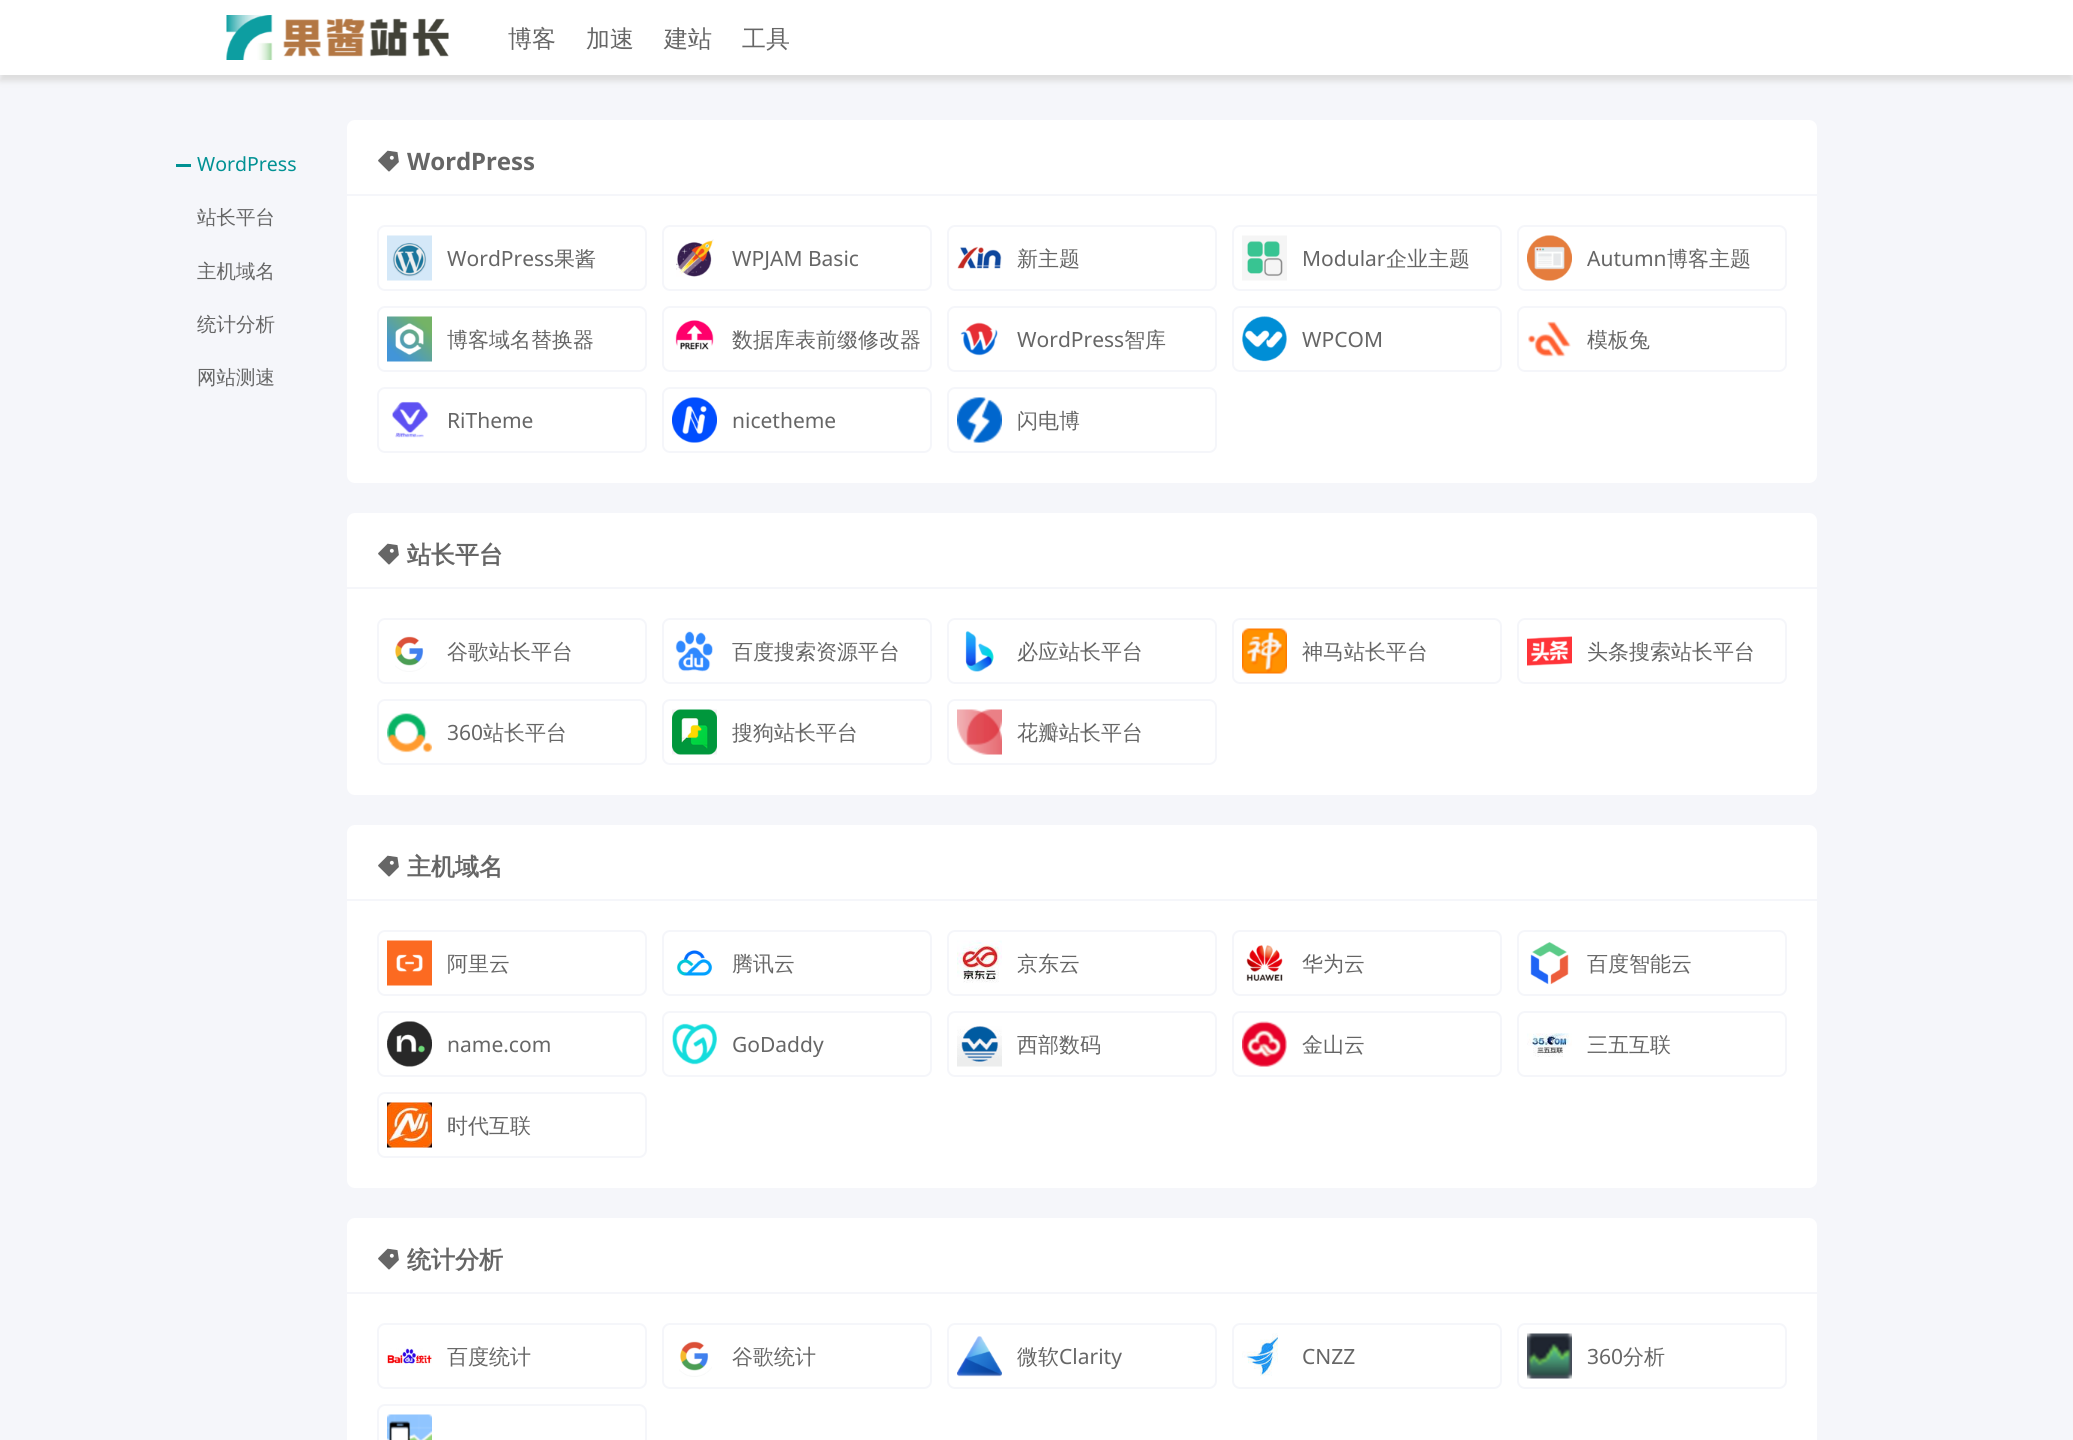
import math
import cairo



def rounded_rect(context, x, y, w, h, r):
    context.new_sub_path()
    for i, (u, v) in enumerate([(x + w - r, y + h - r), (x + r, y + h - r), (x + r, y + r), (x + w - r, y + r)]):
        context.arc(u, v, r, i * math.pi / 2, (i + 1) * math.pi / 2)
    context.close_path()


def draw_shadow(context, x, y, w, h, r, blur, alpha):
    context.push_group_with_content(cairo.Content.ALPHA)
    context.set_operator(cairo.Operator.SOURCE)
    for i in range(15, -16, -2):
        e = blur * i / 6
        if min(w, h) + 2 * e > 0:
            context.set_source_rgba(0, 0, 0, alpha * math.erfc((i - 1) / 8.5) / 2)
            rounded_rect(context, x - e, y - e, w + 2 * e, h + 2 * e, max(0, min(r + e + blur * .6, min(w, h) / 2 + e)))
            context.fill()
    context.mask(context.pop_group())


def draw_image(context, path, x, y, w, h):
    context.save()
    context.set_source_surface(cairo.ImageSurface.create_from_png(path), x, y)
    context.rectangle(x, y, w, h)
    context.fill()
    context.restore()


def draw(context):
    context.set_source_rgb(245 / 255, 246 / 255, 250 / 255)
    context.paint()
    context.set_source_rgb(221 / 255, 221 / 255, 221 / 255)
    draw_shadow(context, 0, 6, 2073, 75, 0, 3, 1)
    context.set_source_rgb(1, 1, 1)
    context.rectangle(0, 0, 2073, 75)
    context.fill()
    draw_image(context, "images/1.png", 226, 15, 223, 45)
    context.set_source_rgb(0, 145 / 255, 147 / 255)
    context.rectangle(176, 164, 15, 3)
    context.fill()
    context.set_source_rgb(1, 1, 1)
    rounded_rect(context, 347, 120, 1470, 363, 8)
    context.fill()
    context.set_source_rgb(245 / 255, 246 / 255, 250 / 255)
    context.rectangle(347, 194, 1470, 2)
    context.fill()
    draw_image(context, "images/2.png", 378, 150, 21, 22)
    rounded_rect(context, 378, 226, 268, 64, 7)
    context.stroke()
    draw_image(context, "images/3.png", 387, 235, 45, 46)
    rounded_rect(context, 663, 226, 268, 64, 7)
    context.stroke()
    draw_image(context, "images/4.png", 676, 239, 38, 38)
    rounded_rect(context, 948, 226, 268, 64, 7)
    context.stroke()
    draw_image(context, "images/5.png", 957, 246, 45, 23)
    rounded_rect(context, 1233, 226, 268, 64, 7)
    context.stroke()
    draw_image(context, "images/6.png", 1242, 235, 45, 46)
    rounded_rect(context, 1518, 226, 268, 64, 7)
    context.stroke()
    draw_image(context, "images/7.png", 1527, 235, 45, 46)
    rounded_rect(context, 378, 307, 268, 64, 7)
    context.stroke()
    draw_image(context, "images/8.png", 387, 316, 45, 46)
    rounded_rect(context, 663, 307, 268, 64, 7)
    context.stroke()
    draw_image(context, "images/9.png", 675, 320, 39, 30)
    rounded_rect(context, 948, 307, 268, 64, 7)
    context.stroke()
    draw_image(context, "images/10.png", 960, 322, 38, 34)
    rounded_rect(context, 1233, 307, 268, 64, 7)
    context.stroke()
    draw_image(context, "images/11.png", 1242, 316, 45, 46)
    rounded_rect(context, 1518, 307, 268, 64, 7)
    context.stroke()
    draw_image(context, "images/12.png", 1528, 321, 43, 36)
    rounded_rect(context, 378, 388, 268, 64, 7)
    context.stroke()
    draw_image(context, "images/13.png", 392, 401, 37, 37)
    rounded_rect(context, 663, 388, 268, 64, 7)
    context.stroke()
    draw_image(context, "images/14.png", 672, 397, 45, 46)
    rounded_rect(context, 948, 388, 268, 64, 7)
    context.stroke()
    draw_image(context, "images/15.png", 957, 397, 45, 46)
    context.set_source_rgb(1, 1, 1)
    rounded_rect(context, 347, 513, 1470, 282, 8)
    context.fill()
    context.set_source_rgb(245 / 255, 246 / 255, 250 / 255)
    context.rectangle(347, 587, 1470, 2)
    context.fill()
    draw_image(context, "images/2.png", 378, 543, 21, 22)
    rounded_rect(context, 378, 619, 268, 64, 7)
    context.stroke()
    draw_image(context, "images/16.png", 395, 636, 32, 36)
    rounded_rect(context, 663, 619, 268, 64, 7)
    context.stroke()
    draw_image(context, "images/17.png", 675, 631, 38, 41)
    rounded_rect(context, 948, 619, 268, 64, 7)
    context.stroke()
    draw_image(context, "images/18.png", 965, 631, 29, 41)
    rounded_rect(context, 1233, 619, 268, 64, 7)
    context.stroke()
    draw_image(context, "images/19.png", 1242, 628, 45, 46)
    rounded_rect(context, 1518, 619, 268, 64, 7)
    context.stroke()
    draw_image(context, "images/20.png", 1527, 636, 45, 30)
    rounded_rect(context, 378, 700, 268, 64, 7)
    context.stroke()
    draw_image(context, "images/21.png", 387, 713, 45, 40)
    rounded_rect(context, 663, 700, 268, 64, 7)
    context.stroke()
    draw_image(context, "images/22.png", 672, 709, 45, 46)
    rounded_rect(context, 948, 700, 268, 64, 7)
    context.stroke()
    draw_image(context, "images/23.png", 957, 709, 45, 46)
    context.set_source_rgb(1, 1, 1)
    rounded_rect(context, 347, 825, 1470, 363, 8)
    context.fill()
    context.set_source_rgb(245 / 255, 246 / 255, 250 / 255)
    context.rectangle(347, 899, 1470, 2)
    context.fill()
    draw_image(context, "images/2.png", 378, 855, 21, 22)
    rounded_rect(context, 378, 931, 268, 64, 7)
    context.stroke()
    draw_image(context, "images/24.png", 387, 940, 45, 46)
    rounded_rect(context, 663, 931, 268, 64, 7)
    context.stroke()
    draw_image(context, "images/25.png", 676, 950, 37, 26)
    rounded_rect(context, 948, 931, 268, 64, 7)
    context.stroke()
    draw_image(context, "images/26.png", 957, 940, 45, 43)
    rounded_rect(context, 1233, 931, 268, 64, 7)
    context.stroke()
    draw_image(context, "images/27.png", 1246, 945, 37, 36)
    rounded_rect(context, 1518, 931, 268, 64, 7)
    context.stroke()
    draw_image(context, "images/28.png", 1530, 942, 39, 43)
    rounded_rect(context, 378, 1012, 268, 64, 7)
    context.stroke()
    draw_image(context, "images/29.png", 387, 1021, 45, 46)
    rounded_rect(context, 663, 1012, 268, 64, 7)
    context.stroke()
    draw_image(context, "images/30.png", 672, 1023, 45, 42)
    rounded_rect(context, 948, 1012, 268, 64, 7)
    context.stroke()
    draw_image(context, "images/31.png", 957, 1026, 45, 41)
    rounded_rect(context, 1233, 1012, 268, 64, 7)
    context.stroke()
    draw_image(context, "images/32.png", 1242, 1021, 45, 46)
    rounded_rect(context, 1518, 1012, 268, 64, 7)
    context.stroke()
    draw_image(context, "images/33.png", 1527, 1033, 45, 24)
    rounded_rect(context, 378, 1093, 268, 64, 7)
    context.stroke()
    draw_image(context, "images/34.png", 387, 1102, 45, 46)
    context.set_source_rgb(1, 1, 1)
    rounded_rect(context, 347, 1218, 1470, 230, 8)
    context.fill()
    context.set_source_rgb(245 / 255, 246 / 255, 250 / 255)
    context.rectangle(347, 1292, 1470, 2)
    context.fill()
    draw_image(context, "images/2.png", 378, 1248, 21, 22)
    rounded_rect(context, 378, 1324, 268, 64, 7)
    context.stroke()
    draw_image(context, "images/35.png", 387, 1348, 45, 16)
    rounded_rect(context, 663, 1324, 268, 64, 7)
    context.stroke()
    draw_image(context, "images/36.png", 679, 1341, 33, 36)
    rounded_rect(context, 948, 1324, 268, 64, 7)
    context.stroke()
    draw_image(context, "images/37.png", 957, 1336, 45, 41)
    rounded_rect(context, 1233, 1324, 268, 64, 7)
    context.stroke()
    draw_image(context, "images/38.png", 1242, 1333, 36, 43)
    rounded_rect(context, 1518, 1324, 268, 64, 7)
    context.stroke()
    draw_image(context, "images/39.png", 1527, 1333, 45, 46)
    rounded_rect(context, 378, 1405, 268, 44, 7)
    context.stroke()
    draw_image(context, "images/40.png", 387, 1414, 45, 26)
    context.select_font_face("WenQuanYi Zen Hei Medium")
    context.set_font_size(24)
    context.set_source_rgb(102 / 255, 102 / 255, 102 / 255)
    context.move_to(508, 47)
    context.show_text("博客")
    context.move_to(586, 47)
    context.show_text("加速")
    context.move_to(664, 47)
    context.show_text("建站")
    context.move_to(742, 47)
    context.show_text("工具")
    context.select_font_face("Noto Sans")
    context.set_font_size(19.5)
    context.set_source_rgb(0, 145 / 255, 147 / 255)
    context.move_to(197, 171)
    context.show_text("WordPress")
    context.select_font_face("WenQuanYi Zen Hei Medium")
    context.set_source_rgb(102 / 255, 102 / 255, 102 / 255)
    context.move_to(197, 224)
    context.show_text("站长平台")
    context.move_to(197, 278)
    context.show_text("主机域名")
    context.move_to(197, 331)
    context.show_text("统计分析")
    context.move_to(197, 384)
    context.show_text("网站测速")
    context.select_font_face("Noto Sans", cairo.FontSlant.NORMAL, cairo.FontWeight.BOLD)
    context.set_font_size(24)
    context.move_to(407, 170)
    context.show_text("WordPress")
    context.select_font_face("Noto Sans")
    context.set_font_size(21)
    context.move_to(447, 266)
    context.show_text("WordPress")
    context.select_font_face("WenQuanYi Zen Hei Medium")
    context.move_to(554, 266)
    context.show_text("果酱")
    context.select_font_face("Noto Sans")
    context.move_to(732, 266)
    context.show_text("WPJAM Basic")
    context.select_font_face("WenQuanYi Zen Hei Medium")
    context.move_to(1017, 266)
    context.show_text("新主题")
    context.select_font_face("Noto Sans")
    context.move_to(1302, 266)
    context.show_text("Modular")
    context.select_font_face("WenQuanYi Zen Hei Medium")
    context.move_to(1386, 266)
    context.show_text("企业主题")
    context.select_font_face("Noto Sans")
    context.move_to(1587, 266)
    context.show_text("Autumn")
    context.select_font_face("WenQuanYi Zen Hei Medium")
    context.move_to(1667, 266)
    context.show_text("博客主题")
    context.move_to(447, 347)
    context.show_text("博客域名替换器")
    context.move_to(732, 347)
    context.show_text("数据库表前缀修改器")
    context.select_font_face("Noto Sans")
    context.move_to(1017, 347)
    context.show_text("WordPress")
    context.select_font_face("WenQuanYi Zen Hei Medium")
    context.move_to(1124, 347)
    context.show_text("智库")
    context.select_font_face("Noto Sans")
    context.move_to(1302, 347)
    context.show_text("WPCOM")
    context.select_font_face("WenQuanYi Zen Hei Medium")
    context.move_to(1587, 347)
    context.show_text("模板兔")
    context.select_font_face("Noto Sans")
    context.move_to(447, 428)
    context.show_text("RiTheme")
    context.move_to(732, 428)
    context.show_text("nicetheme")
    context.select_font_face("WenQuanYi Zen Hei Medium")
    context.move_to(1017, 428)
    context.show_text("闪电博")
    context.select_font_face("WenQuanYi Zen Hei", cairo.FontSlant.NORMAL, cairo.FontWeight.BOLD)
    context.set_font_size(24)
    context.move_to(407, 563)
    context.show_text("站长平台")
    context.select_font_face("WenQuanYi Zen Hei Medium")
    context.set_font_size(21)
    context.move_to(447, 659)
    context.show_text("谷歌站长平台")
    context.move_to(732, 659)
    context.show_text("百度搜索资源平台")
    context.move_to(1017, 659)
    context.show_text("必应站长平台")
    context.move_to(1302, 659)
    context.show_text("神马站长平台")
    context.move_to(1587, 659)
    context.show_text("头条搜索站长平台")
    context.select_font_face("Noto Sans")
    context.move_to(447, 740)
    context.show_text("360")
    context.select_font_face("WenQuanYi Zen Hei Medium")
    context.move_to(483, 740)
    context.show_text("站长平台")
    context.move_to(732, 740)
    context.show_text("搜狗站长平台")
    context.move_to(1017, 740)
    context.show_text("花瓣站长平台")
    context.select_font_face("WenQuanYi Zen Hei", cairo.FontSlant.NORMAL, cairo.FontWeight.BOLD)
    context.set_font_size(24)
    context.move_to(407, 875)
    context.show_text("主机域名")
    context.select_font_face("WenQuanYi Zen Hei Medium")
    context.set_font_size(21)
    context.move_to(447, 971)
    context.show_text("阿里云")
    context.move_to(732, 971)
    context.show_text("腾讯云")
    context.move_to(1017, 971)
    context.show_text("京东云")
    context.move_to(1302, 971)
    context.show_text("华为云")
    context.move_to(1587, 971)
    context.show_text("百度智能云")
    context.select_font_face("Noto Sans")
    context.move_to(447, 1052)
    context.show_text("name.com")
    context.move_to(732, 1052)
    context.show_text("GoDaddy")
    context.select_font_face("WenQuanYi Zen Hei Medium")
    context.move_to(1017, 1052)
    context.show_text("西部数码")
    context.move_to(1302, 1052)
    context.show_text("金山云")
    context.move_to(1587, 1052)
    context.show_text("三五互联")
    context.move_to(447, 1133)
    context.show_text("时代互联")
    context.select_font_face("WenQuanYi Zen Hei", cairo.FontSlant.NORMAL, cairo.FontWeight.BOLD)
    context.set_font_size(24)
    context.move_to(407, 1268)
    context.show_text("统计分析")
    context.select_font_face("WenQuanYi Zen Hei Medium")
    context.set_font_size(21)
    context.move_to(447, 1364)
    context.show_text("百度统计")
    context.move_to(732, 1364)
    context.show_text("谷歌统计")
    context.move_to(1017, 1364)
    context.show_text("微软")
    context.select_font_face("Noto Sans")
    context.move_to(1059, 1364)
    context.show_text("Clarity")
    context.move_to(1302, 1364)
    context.show_text("CNZZ")
    context.move_to(1587, 1364)
    context.show_text("360")
    context.select_font_face("WenQuanYi Zen Hei Medium")
    context.move_to(1623, 1364)
    context.show_text("分析")


surface = cairo.ImageSurface(cairo.Format.RGB24, 2073, 1440)
context = cairo.Context(surface)
options = cairo.FontOptions()
options.set_hint_metrics(cairo.HintMetrics.OFF)
options.set_hint_style(cairo.HintStyle.NONE)
context.set_font_options(options)
context.set_miter_limit(4)
draw(context)
surface.write_to_png("out.png")
